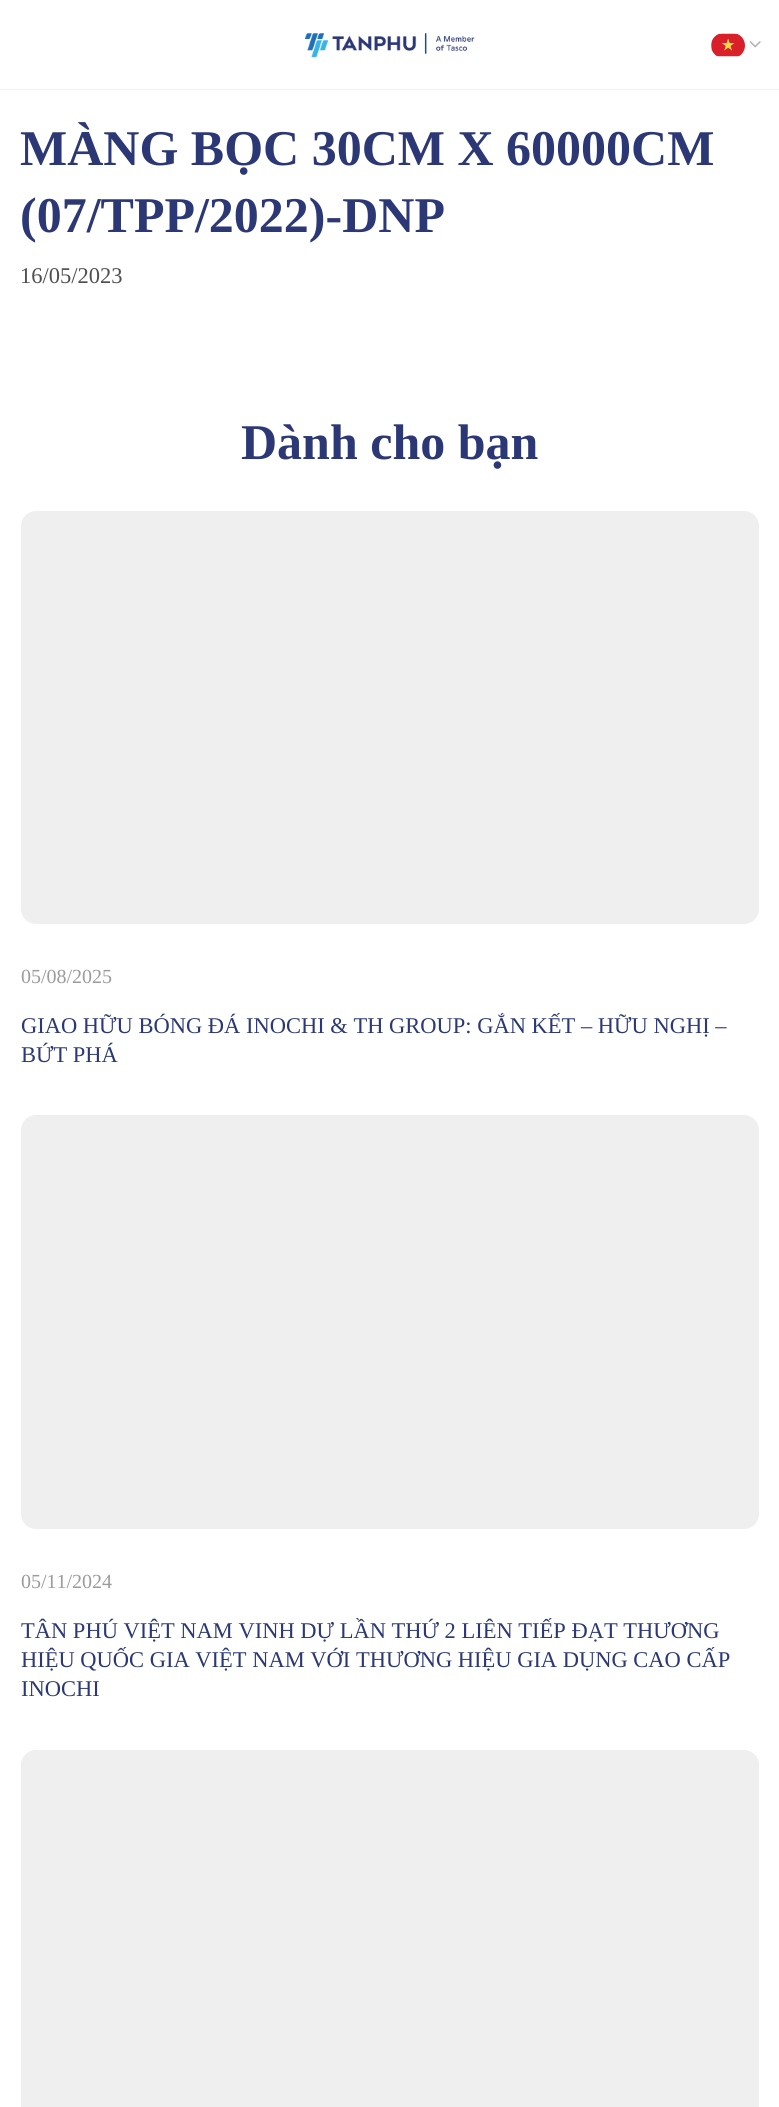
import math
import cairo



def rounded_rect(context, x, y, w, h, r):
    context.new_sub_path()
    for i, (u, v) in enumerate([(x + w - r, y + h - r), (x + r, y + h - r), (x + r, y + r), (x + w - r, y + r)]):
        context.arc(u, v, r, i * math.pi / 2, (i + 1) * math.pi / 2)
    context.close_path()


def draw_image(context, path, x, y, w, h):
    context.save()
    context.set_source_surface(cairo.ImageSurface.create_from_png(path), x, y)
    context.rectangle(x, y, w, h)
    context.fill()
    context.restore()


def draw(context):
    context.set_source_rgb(1, 1, 1)
    context.paint()
    context.set_source_rgb(242 / 255, 242 / 255, 242 / 255)
    context.rectangle(0, 89, 779, 1)
    context.fill()
    draw_image(context, "images/1.png", 304, 33, 171, 25)
    draw_image(context, "images/2.png", 711, 33, 34, 24)
    draw_image(context, "images/3.png", 749, 41, 12, 7)
    context.set_source_rgb(239 / 255, 239 / 255, 239 / 255)
    rounded_rect(context, 21, 511, 738, 413, 15)
    context.fill()
    rounded_rect(context, 21, 1115, 738, 414, 15)
    context.fill()
    rounded_rect(context, 21, 1750, 738, 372, 15)
    context.fill()
    context.select_font_face("Liberation Serif", cairo.FontSlant.NORMAL, cairo.FontWeight.BOLD)
    context.set_font_size(50)
    context.set_source_rgb(43 / 255, 56 / 255, 117 / 255)
    context.move_to(20, 165)
    context.show_text("MÀNG BỌC 30CM X 60000CM")
    context.move_to(20, 232)
    context.show_text("(07/TPP/2022)-DNP")
    context.select_font_face("Liberation Serif")
    context.set_font_size(22.5)
    context.set_source_rgb(79 / 255, 79 / 255, 79 / 255)
    context.move_to(20, 283)
    context.show_text("16/05/2023")
    context.select_font_face("Liberation Serif", cairo.FontSlant.NORMAL, cairo.FontWeight.BOLD)
    context.set_font_size(50)
    context.set_source_rgb(43 / 255, 56 / 255, 117 / 255)
    context.move_to(241, 459)
    context.show_text("Dành cho bạn")
    context.select_font_face("Liberation Serif")
    context.set_font_size(20)
    context.set_source_rgb(155 / 255, 155 / 255, 155 / 255)
    context.move_to(21, 983)
    context.show_text("05/08/2025")
    context.set_font_size(22.5)
    context.set_source_rgb(43 / 255, 56 / 255, 117 / 255)
    context.move_to(21, 1033)
    context.show_text("GIAO HỮU BÓNG ĐÁ INOCHI & TH GROUP: GẮN KẾT – HỮU NGHỊ –")
    context.move_to(21, 1062)
    context.show_text("BỨT PHÁ")
    context.set_font_size(20)
    context.set_source_rgb(155 / 255, 155 / 255, 155 / 255)
    context.move_to(21, 1588)
    context.show_text("05/11/2024")
    context.set_font_size(22.5)
    context.set_source_rgb(43 / 255, 56 / 255, 117 / 255)
    context.move_to(21, 1638)
    context.show_text("TÂN PHÚ VIỆT NAM VINH DỰ LẦN THỨ 2 LIÊN TIẾP ĐẠT THƯƠNG")
    context.move_to(21, 1667)
    context.show_text("HIỆU QUỐC GIA VIỆT NAM VỚI THƯƠNG HIỆU GIA DỤNG CAO CẤP")
    context.move_to(21, 1696)
    context.show_text("INOCHI")


surface = cairo.ImageSurface(cairo.Format.RGB24, 779, 2107)
context = cairo.Context(surface)
options = cairo.FontOptions()
options.set_hint_metrics(cairo.HintMetrics.OFF)
options.set_hint_style(cairo.HintStyle.NONE)
context.set_font_options(options)
context.set_miter_limit(4)
draw(context)
surface.write_to_png("out.png")
